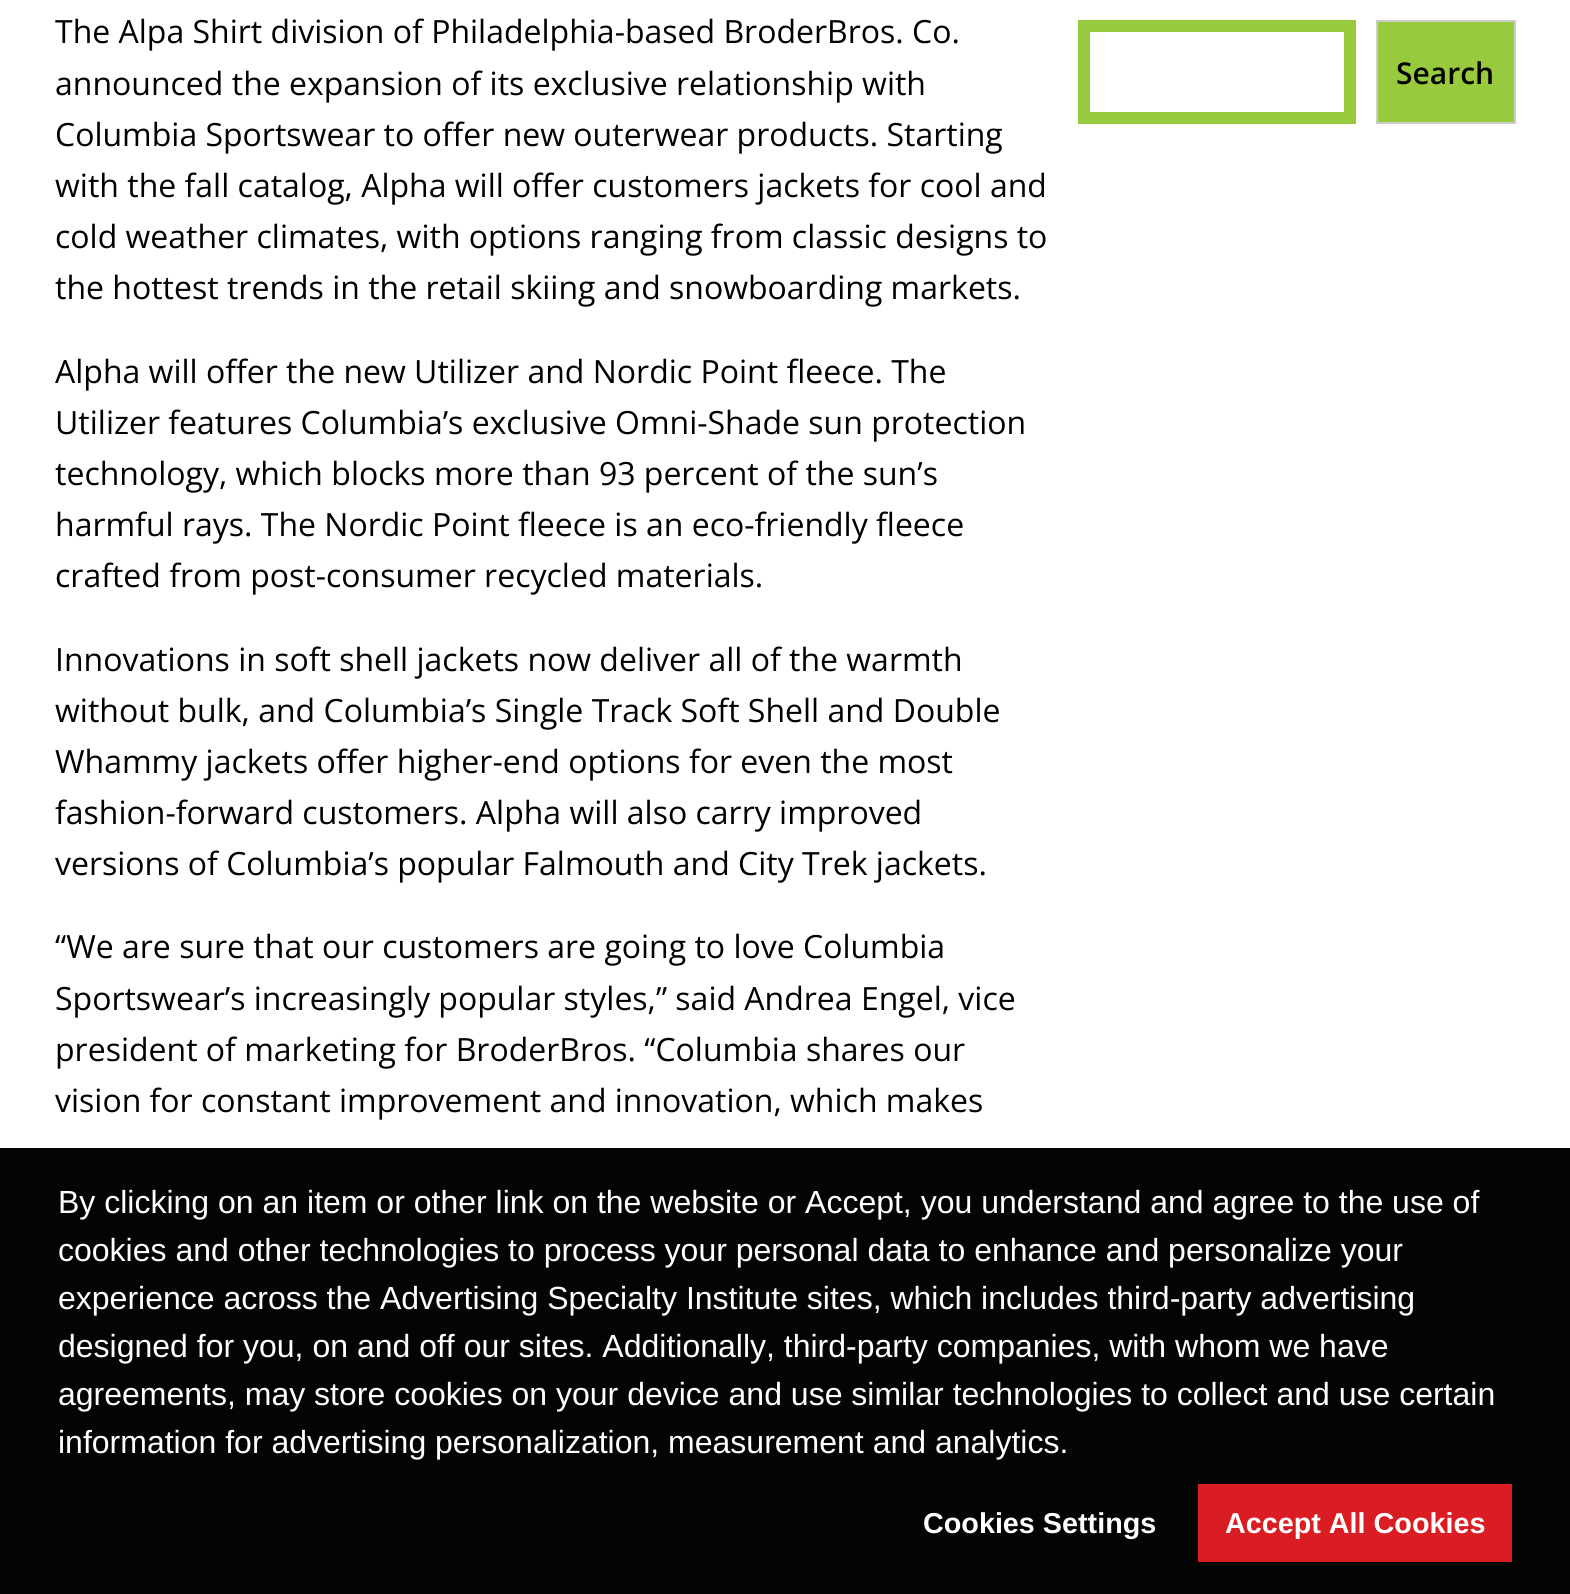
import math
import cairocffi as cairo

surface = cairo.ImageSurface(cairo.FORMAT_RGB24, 1570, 1594)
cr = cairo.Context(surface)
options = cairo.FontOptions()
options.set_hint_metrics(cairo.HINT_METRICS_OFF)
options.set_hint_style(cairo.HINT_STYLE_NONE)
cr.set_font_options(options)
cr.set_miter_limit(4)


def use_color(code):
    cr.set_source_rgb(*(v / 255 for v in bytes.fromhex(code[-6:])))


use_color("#ffffff")
cr.paint()
cr.select_font_face("Open Sans")
cr.set_font_size(32)
use_color("#000000")
cr.move_to(55, 43)
cr.show_text("The Alpa Shirt division of Philadelphia-based BroderBros. Co.")
cr.move_to(55, 95)
cr.show_text("announced the expansion of its exclusive relationship with")
cr.move_to(55, 146)
cr.show_text("Columbia Sportswear to offer new outerwear products. Starting")
cr.move_to(55, 197)
cr.show_text("with the fall catalog, Alpha will offer customers jackets for cool and")
cr.move_to(55, 248)
cr.show_text("cold weather climates, with options ranging from classic designs to")
cr.move_to(55, 299)
cr.show_text("the hottest trends in the retail skiing and snowboarding markets.")
cr.move_to(55, 383)
cr.show_text("Alpha will offer the new Utilizer and Nordic Point fleece. The")
cr.move_to(55, 434)
cr.show_text("Utilizer features Columbia’s exclusive Omni-Shade sun protection")
cr.move_to(55, 485)
cr.show_text("technology, which blocks more than 93 percent of the sun’s")
cr.move_to(55, 536)
cr.show_text("harmful rays. The Nordic Point fleece is an eco-friendly fleece")
cr.move_to(55, 587)
cr.show_text("crafted from post-consumer recycled materials.")
cr.move_to(55, 671)
cr.show_text("Innovations in soft shell jackets now deliver all of the warmth")
cr.move_to(55, 722)
cr.show_text("without bulk, and Columbia’s Single Track Soft Shell and Double")
cr.move_to(55, 773)
cr.show_text("Whammy jackets offer higher-end options for even the most")
cr.move_to(55, 824)
cr.show_text("fashion-forward customers. Alpha will also carry improved")
cr.move_to(55, 875)
cr.show_text("versions of Columbia’s popular Falmouth and City Trek jackets.")
cr.move_to(55, 958)
cr.show_text("“We are sure that our customers are going to love Columbia")
cr.move_to(55, 1010)
cr.show_text("Sportswear’s increasingly popular styles,” said Andrea Engel, vice")
cr.move_to(55, 1061)
cr.show_text("president of marketing for BroderBros. “Columbia shares our")
cr.move_to(55, 1112)
cr.show_text("vision for constant improvement and innovation, which makes")
cr.rectangle(1084, 26, 266, 92)
use_color("#97ca3d")
cr.set_line_width(12)
cr.stroke()
cr.rectangle(1377, 21, 138, 102)
cr.fill_preserve()
use_color("#cccccc")
cr.set_line_width(2)
cr.stroke()
cr.select_font_face("Open Sans SemiBold")
cr.set_font_size(30)
use_color("#000000")
cr.move_to(1396, 84)
cr.show_text("Search")
use_color("#040404")
cr.rectangle(0, 1148, 1570, 446)
cr.fill()
cr.select_font_face("Liberation Sans")
cr.set_font_size(32)
use_color("#ffffff")
cr.move_to(58, 1213)
cr.show_text("By clicking on an item or other link on the website or Accept, you understand and agree to the use of")
cr.move_to(58, 1261)
cr.show_text("cookies and other technologies to process your personal data to enhance and personalize your")
cr.move_to(58, 1309)
cr.show_text("experience across the Advertising Specialty Institute sites, which includes third-party advertising")
cr.move_to(58, 1357)
cr.show_text("designed for you, on and off our sites. Additionally, third-party companies, with whom we have")
cr.move_to(58, 1405)
cr.show_text("agreements, may store cookies on your device and use similar technologies to collect and use certain")
cr.move_to(58, 1453)
cr.show_text("information for advertising personalization, measurement and analytics.")
cr.select_font_face("Liberation Sans", cairo.FONT_SLANT_NORMAL, cairo.FONT_WEIGHT_BOLD)
cr.set_font_size(28.75)
cr.move_to(923, 1533)
cr.show_text("Cookies Settings")
use_color("#da1c23")
cr.rectangle(1198, 1484, 314, 78)
cr.fill()
use_color("#ffffff")
cr.move_to(1225, 1533)
cr.show_text("Accept All Cookies")
surface.write_to_png("result.png")
